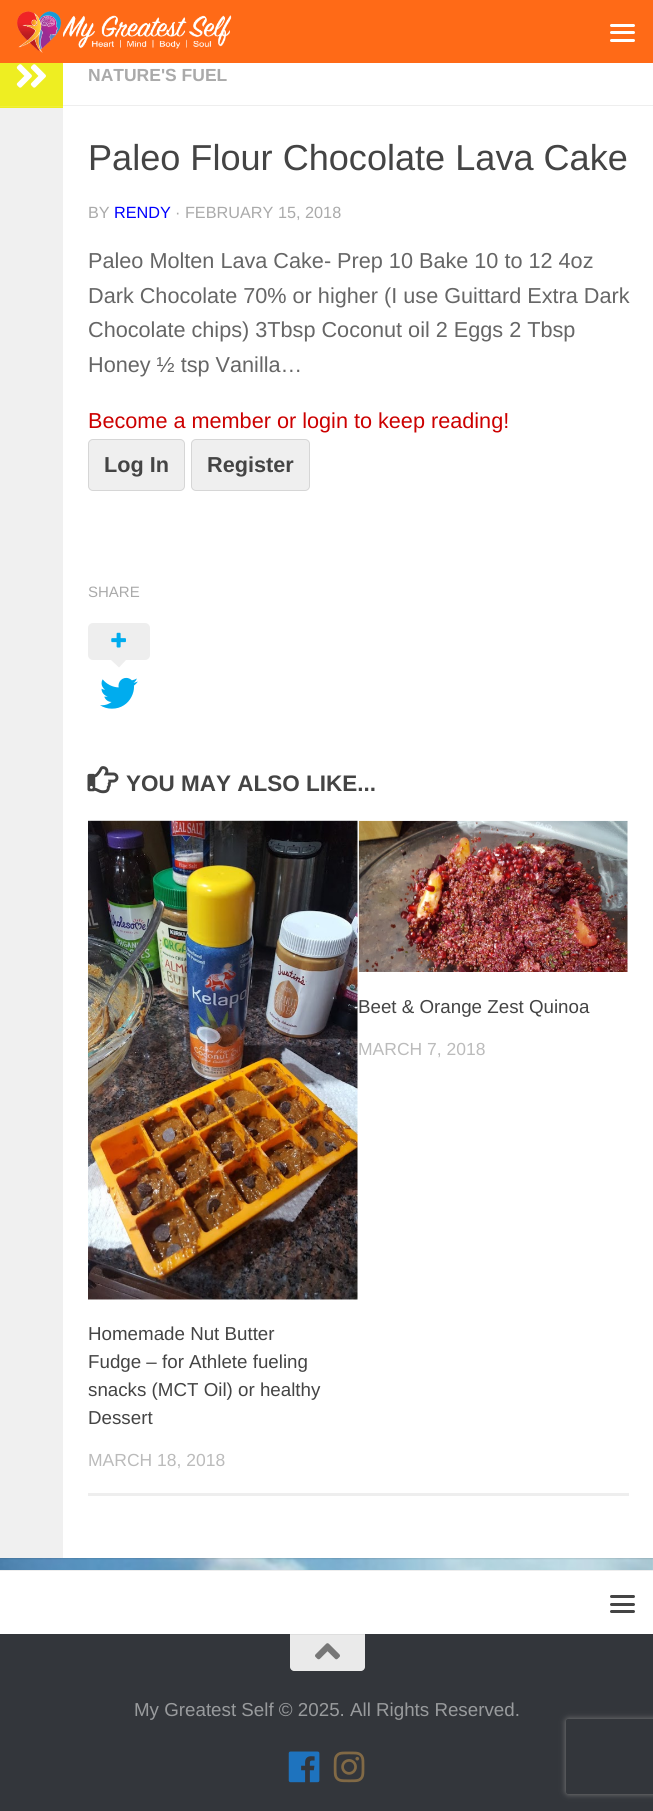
import math
import cairocffi as cairo

surface = cairo.ImageSurface(cairo.FORMAT_RGB24, 653, 1811)
cr = cairo.Context(surface)
options = cairo.FontOptions()
options.set_hint_metrics(cairo.HINT_METRICS_OFF)
options.set_hint_style(cairo.HINT_STYLE_NONE)
cr.set_font_options(options)
cr.set_miter_limit(4)


def use_color(code):
    cr.set_source_rgb(*(v / 255 for v in bytes.fromhex(code[-6:])))


def round_rect(x, y, w, h, r):
    cr.new_sub_path()
    for i, (u, v) in enumerate([(x + w - r, y + h - r), (x + r, y + h - r), (x + r, y + r), (x + w - r, y + r)]):
        cr.arc(u, v, r, i * math.pi / 2, (i + 1) * math.pi / 2)
    cr.close_path()


def shadow(x, y, w, h, r, blur, alpha):
    cr.push_group_with_content(cairo.CONTENT_ALPHA)
    cr.set_operator(cairo.OPERATOR_SOURCE)
    for i in range(15, -16, -2):
        e = blur * i / 6
        if min(w, h) + 2 * e > 0:
            cr.set_source_rgba(0, 0, 0, alpha * math.erfc((i - 1) / 8.5) / 2)
            round_rect(x - e, y - e, w + 2 * e, h + 2 * e, max(0, min(r + e + blur * .6, min(w, h) / 2 + e)))
            cr.fill()
    cr.mask(cr.pop_group())


def picture(path, x, y, w, h):
    cr.save()
    cr.set_source_surface(cairo.ImageSurface.create_from_png(path), x, y)
    cr.rectangle(x, y, w, h)
    cr.fill()
    cr.restore()


use_color("#ffffff")
cr.paint()
picture("img1.png", 0, 1558, 653, 12)
use_color("#000000")
shadow(0, 46, 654, 1513, 0, 0.5, 0.1)
use_color("#ff6a17")
cr.rectangle(0, 0, 653, 63)
cr.fill()
picture("img2.png", 17, 11, 215, 42)
use_color("#ffffff")
round_rect(610, 24, 25, 3, 1.5)
cr.fill()
round_rect(610, 31, 25, 3, 1.5)
cr.fill()
round_rect(610, 39, 25, 3, 1.5)
cr.fill()
cr.rectangle(63, 63, 590, 1495)
cr.fill()
use_color("#f0f0f0")
cr.rectangle(0, 108, 63, 1450)
cr.fill()
use_color("#eeee22")
cr.rectangle(0, 63, 63, 45)
cr.fill()
use_color("#f0f038")
cr.rectangle(0, 106, 63, 1)
cr.fill()
picture("img3.png", 16, 64, 30, 24)
use_color("#eeeeee")
cr.rectangle(63, 105, 590, 1)
cr.fill()
cr.select_font_face("Liberation Sans", cairo.FONT_SLANT_NORMAL, cairo.FONT_WEIGHT_BOLD)
cr.set_font_size(17.5)
use_color("#aaaaaa")
cr.move_to(88, 81)
cr.show_text("NATURE'S FUEL")
cr.select_font_face("Liberation Sans")
cr.set_font_size(36.1)
use_color("#444444")
cr.move_to(88, 170)
cr.show_text("Paleo Flour Chocolate Lava Cake")
cr.set_font_size(16.25)
use_color("#aaaaaa")
cr.move_to(88, 218)
cr.show_text("BY")
use_color("#0000ff")
cr.move_to(114, 218)
cr.show_text("RENDY")
use_color("#aaaaaa")
cr.move_to(175, 218)
cr.show_text("· FEBRUARY 15, 2018")
cr.set_font_size(21.65)
use_color("#666666")
cr.move_to(88, 268)
cr.show_text("Paleo Molten Lava Cake- Prep 10 Bake 10 to 12 4oz")
cr.move_to(88, 303)
cr.show_text("Dark Chocolate 70% or higher (I use Guittard Extra Dark")
cr.move_to(88, 337)
cr.show_text("Chocolate chips) 3Tbsp Coconut oil 2 Eggs 2 Tbsp")
cr.move_to(88, 372)
cr.show_text("Honey ½ tsp Vanilla…")
use_color("#cc0000")
cr.move_to(88, 428)
cr.show_text("Become a member or login to keep reading!")
use_color("#efefef")
round_rect(88.5, 439.5, 96, 51, 4.5)
cr.fill_preserve()
use_color("#d6d6d6")
cr.set_line_width(1)
cr.stroke()
cr.select_font_face("Liberation Sans", cairo.FONT_SLANT_NORMAL, cairo.FONT_WEIGHT_BOLD)
use_color("#444444")
cr.move_to(104, 472)
cr.show_text("Log In")
use_color("#efefef")
round_rect(191.5, 439.5, 118, 51, 4.5)
cr.fill_preserve()
use_color("#d6d6d6")
cr.stroke()
use_color("#444444")
cr.move_to(207, 472)
cr.show_text("Register")
cr.select_font_face("Liberation Sans")
cr.set_font_size(15)
use_color("#aaaaaa")
cr.move_to(88, 597)
cr.show_text("SHARE")
use_color("#eeeeee")
round_rect(88, 623, 62, 37, 5)
cr.fill()
picture("img4.png", 111, 632, 15, 16)
cr.new_path()
cr.move_to(111, 660)
cr.line_to(126, 660)
cr.line_to(119, 667.5)
cr.close_path()
cr.fill()
picture("img5.png", 100, 677, 38, 32)
picture("img6.png", 87, 766, 32, 28)
cr.select_font_face("Liberation Sans", cairo.FONT_SLANT_NORMAL, cairo.FONT_WEIGHT_BOLD)
cr.set_font_size(22.5)
use_color("#444444")
cr.move_to(126, 791)
cr.show_text("YOU MAY ALSO LIKE...")
use_color("#eeeeee")
cr.rectangle(88, 1493, 541, 3)
cr.fill()
picture("img7.png", 358, 820, 270, 152)
cr.select_font_face("Liberation Sans")
cr.set_font_size(18.75)
use_color("#444444")
cr.move_to(358, 1013)
cr.show_text("Beet & Orange Zest Quinoa")
cr.set_font_size(17.5)
use_color("#bbbbbb")
cr.move_to(358, 1055)
cr.show_text("MARCH 7, 2018")
picture("img8.png", 88, 820, 270, 480)
cr.set_font_size(18.75)
use_color("#444444")
cr.move_to(88, 1340)
cr.show_text("Homemade Nut Butter")
cr.move_to(88, 1368)
cr.show_text("Fudge – for Athlete fueling")
cr.move_to(88, 1396)
cr.show_text("snacks (MCT Oil) or healthy")
cr.move_to(88, 1424)
cr.show_text("Dessert")
cr.set_font_size(17.5)
use_color("#bbbbbb")
cr.move_to(88, 1466)
cr.show_text("MARCH 18, 2018")
use_color("#eeeeee")
cr.rectangle(0, 1570, 653, 1)
cr.fill()
use_color("#444444")
round_rect(610, 1595, 25, 3, 1.5)
cr.fill()
round_rect(610, 1603, 25, 3, 1.5)
cr.fill()
round_rect(610, 1610, 25, 3, 1.5)
cr.fill()
use_color("#33363b")
cr.rectangle(0, 1634, 653, 177)
cr.fill()
use_color("#eaeaea")
cr.new_path()
cr.move_to(290, 1634)
cr.line_to(365, 1634)
cr.line_to(365, 1667)
cr.curve_to(365, 1669, 363, 1671, 361, 1671)
cr.line_to(294, 1671)
cr.curve_to(292, 1671, 290, 1669, 290, 1667)
cr.close_path()
cr.fill()
use_color("#dedede")
cr.rectangle(290, 1634, 75, 1)
cr.fill()
picture("img9.png", 315, 1643, 25, 17)
cr.set_font_size(18.75)
use_color("#999b9d")
cr.move_to(134, 1716)
cr.show_text("My Greatest Self © 2025. All Rights Reserved.")
picture("img10.png", 288, 1751, 32, 32)
picture("img11.png", 333, 1751, 32, 32)
cr.save()
cr.set_fill_rule(cairo.FILL_RULE_EVEN_ODD)
cr.new_path()
cr.move_to(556, 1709)
cr.line_to(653, 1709)
cr.line_to(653, 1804)
cr.line_to(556, 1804)
cr.close_path()
cr.move_to(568.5, 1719)
cr.line_to(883.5, 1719)
cr.curve_to(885, 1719, 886, 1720, 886, 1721.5)
cr.line_to(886, 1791.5)
cr.curve_to(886, 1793, 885, 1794, 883.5, 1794)
cr.line_to(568.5, 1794)
cr.curve_to(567, 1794, 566, 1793, 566, 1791.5)
cr.line_to(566, 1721.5)
cr.curve_to(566, 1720, 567, 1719, 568.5, 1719)
cr.close_path()
cr.clip()
use_color("#808080")
shadow(566, 1719, 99, 75, 2.5, 3, 1)
cr.restore()
surface.write_to_png("result.png")
